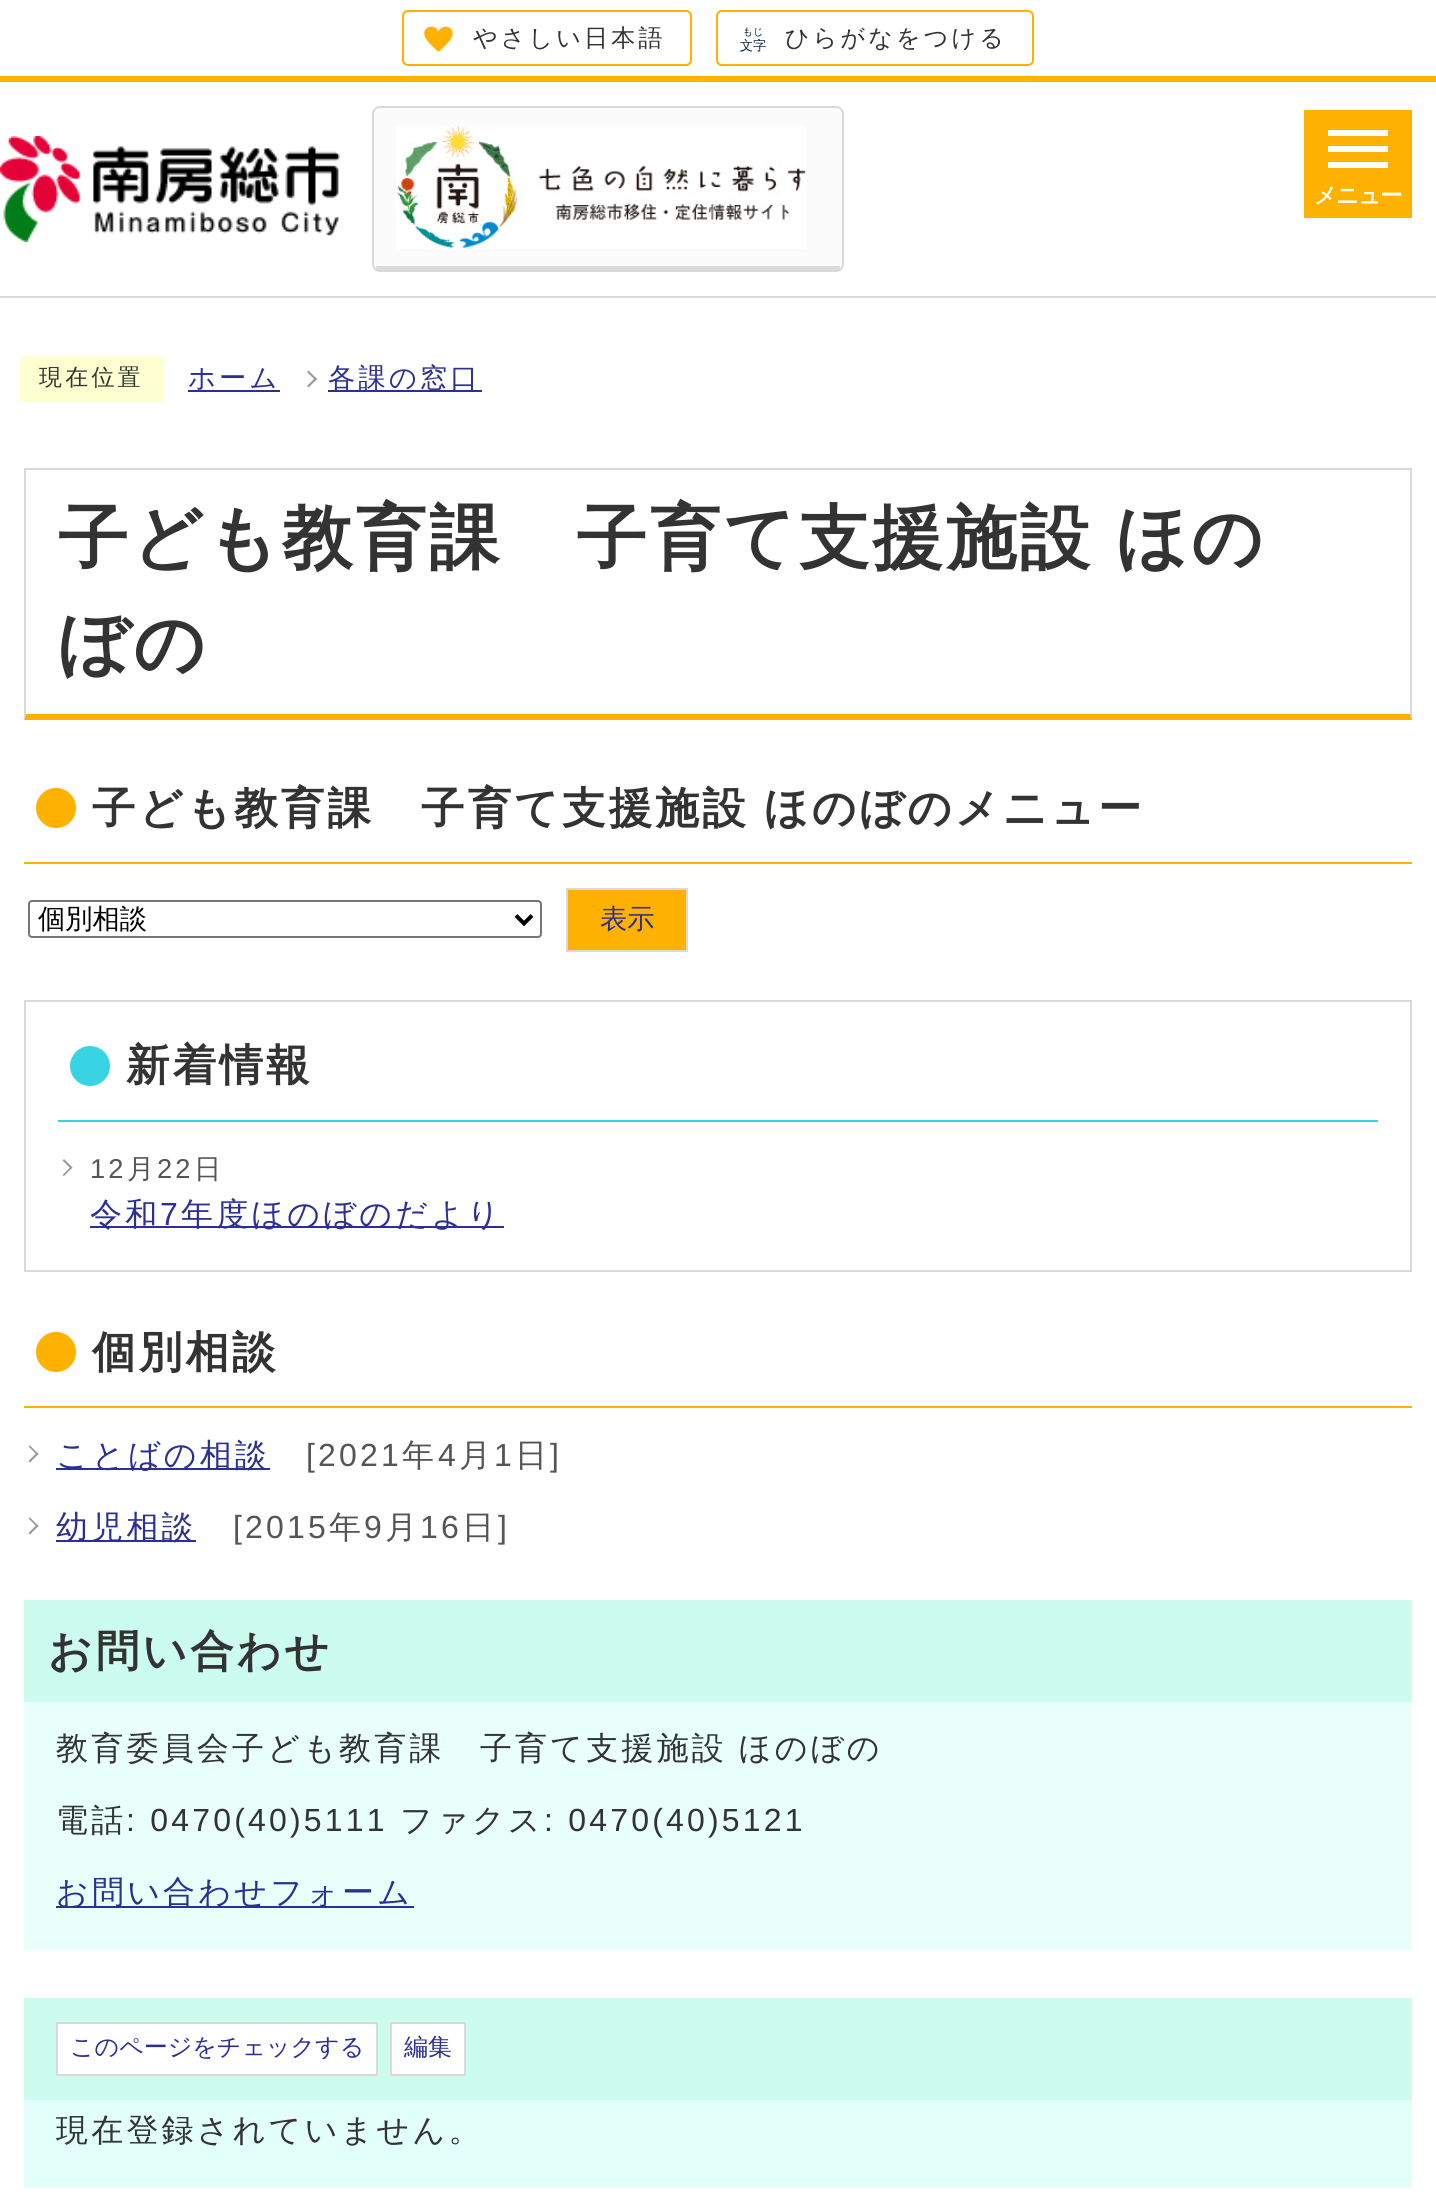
import math
import cairocffi as cairo

surface = cairo.ImageSurface(cairo.FORMAT_RGB24, 1436, 2196)
cr = cairo.Context(surface)
options = cairo.FontOptions()
options.set_hint_metrics(cairo.HINT_METRICS_OFF)
options.set_hint_style(cairo.HINT_STYLE_NONE)
cr.set_font_options(options)
cr.set_miter_limit(4)


def use_color(code):
    cr.set_source_rgb(*(v / 255 for v in bytes.fromhex(code[-6:])))


def spaced_text(x, y, s, letter, word):
    cr.move_to(x, y)
    for ch in s:
        cr.show_text(ch)
        cr.rel_move_to(letter + word * (ch == ' '), 0)


def round_rect(x, y, w, h, r):
    cr.new_sub_path()
    for i, (u, v) in enumerate([(x + w - r, y + h - r), (x + r, y + h - r), (x + r, y + r), (x + w - r, y + r)]):
        cr.arc(u, v, r, i * math.pi / 2, (i + 1) * math.pi / 2)
    cr.close_path()


def picture(path, x, y, w, h):
    cr.save()
    cr.set_source_surface(cairo.ImageSurface.create_from_png(path), x, y)
    cr.rectangle(x, y, w, h)
    cr.fill()
    cr.restore()


use_color("#ffffff")
cr.paint()
picture("img1.png", 424, 26, 30, 26)
round_rect(403, 11, 288, 54, 5)
use_color("#ffb100")
cr.stroke()
cr.select_font_face("WenQuanYi Zen Hei Medium")
cr.set_font_size(24)
use_color("#333333")
spaced_text(473, 46, "やさしい日本語", 3.2, 0)
picture("img2.png", 740, 27, 26, 25)
round_rect(717, 11, 316, 54, 5)
use_color("#ffb100")
cr.stroke()
use_color("#333333")
spaced_text(785, 46, "ひらがなをつける", 3.2, 0)
use_color("#ffb100")
cr.rectangle(0, 76, 1436, 6)
cr.fill()
use_color("#d9d9d9")
cr.rectangle(0, 296, 1436, 2)
cr.fill()
picture("img3.png", 0, 136, 340, 106)
use_color("#fbfbfb")
cr.new_path()
cr.move_to(380, 108)
cr.line_to(836, 108)
cr.curve_to(839, 108, 842, 111, 842, 114)
cr.line_to(842, 264)
cr.curve_to(842, 265, 839, 266, 836, 266)
cr.line_to(380, 266)
cr.curve_to(377, 266, 374, 265, 374, 264)
cr.line_to(374, 114)
cr.curve_to(374, 111, 377, 108, 380, 108)
cr.close_path()
cr.fill()
round_rect(373, 107, 470, 164, 7)
use_color("#d9d9d9")
cr.stroke()
cr.rectangle(376, 266, 464, 4)
cr.fill()
picture("img4.png", 396, 126, 410, 123)
use_color("#ffb100")
cr.rectangle(1304, 110, 108, 108)
cr.fill()
use_color("#ffffff")
cr.rectangle(1328, 130, 60, 6)
cr.fill()
cr.rectangle(1328, 146, 60, 6)
cr.fill()
cr.rectangle(1328, 162, 60, 6)
cr.fill()
cr.select_font_face("WenQuanYi Zen Hei", cairo.FONT_SLANT_NORMAL, cairo.FONT_WEIGHT_BOLD)
cr.set_font_size(22.5)
spaced_text(1314, 203, "メニュー", -1, 0)
use_color("#fdffd1")
round_rect(20, 356, 144, 46, 4)
cr.fill()
cr.select_font_face("WenQuanYi Zen Hei Medium")
cr.set_font_size(23)
use_color("#333333")
spaced_text(39, 385, "現在位置", 3.2, 0)
cr.set_font_size(27.25)
use_color("#2b3095")
spaced_text(188, 387, "ホーム", 3.2, 0)
cr.rectangle(188, 390, 92, 2)
cr.fill()
use_color("#999999")
cr.new_path()
cr.move_to(307, 372)
cr.line_to(308.5, 370.5)
cr.line_to(317, 379)
cr.line_to(315.5, 380.5)
cr.close_path()
cr.fill()
cr.new_path()
cr.move_to(307, 386)
cr.line_to(315.5, 377.5)
cr.line_to(317, 379)
cr.line_to(308.5, 387.5)
cr.close_path()
cr.fill()
use_color("#2b3095")
cr.rectangle(328, 390, 154, 2)
cr.fill()
spaced_text(328, 387, "各課の窓口", 3.2, 0)
use_color("#d9d9d9")
cr.rectangle(24, 468, 1388, 2)
cr.fill()
cr.new_path()
cr.move_to(1412, 468)
cr.line_to(1412, 720)
cr.line_to(1410, 714)
cr.line_to(1410, 470)
cr.close_path()
cr.fill()
use_color("#ffb100")
cr.new_path()
cr.move_to(1412, 720)
cr.line_to(24, 720)
cr.line_to(26, 714)
cr.line_to(1410, 714)
cr.close_path()
cr.fill()
use_color("#d9d9d9")
cr.new_path()
cr.move_to(24, 720)
cr.line_to(24, 468)
cr.line_to(26, 470)
cr.line_to(26, 714)
cr.close_path()
cr.fill()
cr.select_font_face("WenQuanYi Zen Hei", cairo.FONT_SLANT_NORMAL, cairo.FONT_WEIGHT_BOLD)
cr.set_font_size(70.4)
use_color("#333333")
spaced_text(58, 562, "子ども教育課　子育て支援施設 ほの", 3.2, -2)
spaced_text(58, 668, "ぼの", 3.2, 0)
use_color("#ffb100")
cr.rectangle(24, 862, 1388, 2)
cr.fill()
cr.arc(56, 808, 20, 0, 2 * math.pi)
cr.fill()
cr.set_font_size(43.5)
use_color("#333333")
spaced_text(92, 823, "子ども教育課　子育て支援施設 ほのぼのメニュー", 3.2, -1)
round_rect(29, 901, 512, 36, 3)
use_color("#767676")
cr.stroke()
cr.new_path()
cr.move_to(516, 915.5)
cr.line_to(524, 923.5)
cr.line_to(532, 915.5)
use_color("#000000")
cr.set_line_width(4)
cr.stroke()
cr.select_font_face("WenQuanYi Zen Hei Medium")
cr.set_font_size(27.25)
cr.move_to(38, 928)
cr.show_text("個別相談")
use_color("#ffb100")
cr.rectangle(567, 889, 120, 62)
cr.fill_preserve()
use_color("#d9d9d9")
cr.set_line_width(2)
cr.stroke()
use_color("#2b3095")
cr.move_to(600, 928)
cr.show_text("表示")
cr.rectangle(25, 1001, 1386, 270)
use_color("#d9d9d9")
cr.stroke()
use_color("#39d4e3")
cr.rectangle(58, 1120, 1320, 2)
cr.fill()
cr.arc(90, 1066, 20, 0, 2 * math.pi)
cr.fill()
cr.select_font_face("WenQuanYi Zen Hei", cairo.FONT_SLANT_NORMAL, cairo.FONT_WEIGHT_BOLD)
cr.set_font_size(43.5)
use_color("#333333")
spaced_text(126, 1080, "新着情報", 3.2, 0)
use_color("#999999")
cr.new_path()
cr.move_to(62.5, 1160.5)
cr.line_to(64, 1159)
cr.line_to(72.5, 1167.5)
cr.line_to(71, 1169)
cr.close_path()
cr.fill()
cr.new_path()
cr.move_to(62.5, 1175)
cr.line_to(71, 1166.5)
cr.line_to(72.5, 1167.5)
cr.line_to(64, 1176)
cr.close_path()
cr.fill()
cr.select_font_face("Liberation Sans")
cr.set_font_size(27.25)
use_color("#555555")
spaced_text(90, 1178, "12", 3.2, 0)
cr.select_font_face("WenQuanYi Zen Hei Medium")
spaced_text(127, 1178, "月", 3.2, 0)
cr.select_font_face("Liberation Sans")
spaced_text(157, 1178, "22", 3.2, 0)
cr.select_font_face("WenQuanYi Zen Hei Medium")
spaced_text(194, 1178, "日", 3.2, 0)
use_color("#2b3095")
cr.rectangle(90, 1226, 414, 2)
cr.fill()
cr.set_font_size(32)
spaced_text(90, 1225, "令和", 3.2, 0)
cr.select_font_face("Liberation Sans")
spaced_text(160, 1225, "7", 3.2, 0)
cr.select_font_face("WenQuanYi Zen Hei Medium")
spaced_text(181, 1225, "年度ほのぼのだより", 3.2, 0)
use_color("#ffb100")
cr.rectangle(24, 1406, 1388, 2)
cr.fill()
cr.arc(56, 1352, 20, 0, 2 * math.pi)
cr.fill()
cr.select_font_face("WenQuanYi Zen Hei", cairo.FONT_SLANT_NORMAL, cairo.FONT_WEIGHT_BOLD)
cr.set_font_size(43.5)
use_color("#333333")
spaced_text(92, 1367, "個別相談", 3.2, 0)
use_color("#999999")
cr.new_path()
cr.move_to(28.5, 1446.5)
cr.line_to(30, 1445.5)
cr.line_to(38.5, 1454)
cr.line_to(37, 1455)
cr.close_path()
cr.fill()
cr.new_path()
cr.move_to(28.5, 1461)
cr.line_to(37, 1452.5)
cr.line_to(38.5, 1454)
cr.line_to(30, 1462.5)
cr.close_path()
cr.fill()
use_color("#2b3095")
cr.rectangle(56, 1468, 214, 2)
cr.fill()
cr.select_font_face("WenQuanYi Zen Hei Medium")
cr.set_font_size(32)
spaced_text(56, 1466, "ことばの相談", 3.2, 0)
cr.select_font_face("Liberation Sans")
use_color("#555555")
spaced_text(306, 1466, "[2021", 3.2, 0)
cr.select_font_face("WenQuanYi Zen Hei Medium")
spaced_text(402, 1466, "年", 3.2, 0)
cr.select_font_face("Liberation Sans")
spaced_text(438, 1466, "4", 3.2, 0)
cr.select_font_face("WenQuanYi Zen Hei Medium")
spaced_text(459, 1466, "月", 3.2, 0)
cr.select_font_face("Liberation Sans")
spaced_text(494, 1466, "1", 3.2, 0)
cr.select_font_face("WenQuanYi Zen Hei Medium")
spaced_text(515, 1466, "日", 3.2, 0)
cr.select_font_face("Liberation Sans")
spaced_text(550, 1466, "]", 3.2, 0)
use_color("#999999")
cr.new_path()
cr.move_to(28.5, 1518.5)
cr.line_to(30, 1517.5)
cr.line_to(38.5, 1526)
cr.line_to(37, 1527)
cr.close_path()
cr.fill()
cr.new_path()
cr.move_to(28.5, 1533)
cr.line_to(37, 1524.5)
cr.line_to(38.5, 1526)
cr.line_to(30, 1534.5)
cr.close_path()
cr.fill()
use_color("#2b3095")
cr.rectangle(56, 1540, 140, 2)
cr.fill()
cr.select_font_face("WenQuanYi Zen Hei Medium")
spaced_text(56, 1538, "幼児相談", 3.2, 0)
cr.select_font_face("Liberation Sans")
use_color("#555555")
spaced_text(233, 1538, "[2015", 3.2, 0)
cr.select_font_face("WenQuanYi Zen Hei Medium")
spaced_text(329, 1538, "年", 3.2, 0)
cr.select_font_face("Liberation Sans")
spaced_text(364, 1538, "9", 3.2, 0)
cr.select_font_face("WenQuanYi Zen Hei Medium")
spaced_text(385, 1538, "月", 3.2, 0)
cr.select_font_face("Liberation Sans")
spaced_text(420, 1538, "16", 3.2, 0)
cr.select_font_face("WenQuanYi Zen Hei Medium")
spaced_text(462, 1538, "日", 3.2, 0)
cr.select_font_face("Liberation Sans")
spaced_text(498, 1538, "]", 3.2, 0)
use_color("#e8fffa")
cr.rectangle(24, 1702, 1388, 248)
cr.fill()
use_color("#cbfced")
cr.rectangle(24, 1600, 1388, 102)
cr.fill()
cr.select_font_face("WenQuanYi Zen Hei", cairo.FONT_SLANT_NORMAL, cairo.FONT_WEIGHT_BOLD)
cr.set_font_size(43.5)
use_color("#333333")
spaced_text(48, 1666, "お問い合わせ", 3.2, 0)
cr.select_font_face("WenQuanYi Zen Hei Medium")
cr.set_font_size(32)
spaced_text(56, 1759, "教育委員会子ども教育課　子育て支援施設 ほのぼの", 3.2, -1)
spaced_text(56, 1831, "電話", 3.2, 0)
cr.select_font_face("Liberation Sans")
spaced_text(126, 1831, ": 0470(40)5111", 3.2, 0)
cr.select_font_face("WenQuanYi Zen Hei Medium")
spaced_text(400, 1831, "ファクス", 3.2, 0)
cr.select_font_face("Liberation Sans")
spaced_text(544, 1831, ": 0470(40)5121", 3.2, 0)
use_color("#2b3095")
cr.rectangle(56, 1906, 358, 2)
cr.fill()
cr.select_font_face("WenQuanYi Zen Hei Medium")
spaced_text(56, 1903, "お問い合わせフォーム", 3.2, 0)
use_color("#cbfced")
cr.rectangle(24, 1998, 1388, 102)
cr.fill()
use_color("#ffffff")
cr.rectangle(57, 2023, 320, 52)
cr.fill_preserve()
use_color("#d9d9d9")
cr.stroke()
cr.set_font_size(24)
use_color("#2b3095")
cr.move_to(70, 2055)
cr.show_text("このページをチェックする")
use_color("#ffffff")
cr.rectangle(391, 2023, 74, 52)
cr.fill_preserve()
use_color("#d9d9d9")
cr.stroke()
use_color("#2b3095")
cr.move_to(404, 2055)
cr.show_text("編集")
use_color("#e2fff9")
cr.rectangle(24, 2100, 1388, 88)
cr.fill()
cr.set_font_size(32)
use_color("#333333")
spaced_text(56, 2141, "現在登録されていません。", 3.2, 0)
surface.write_to_png("result.png")
